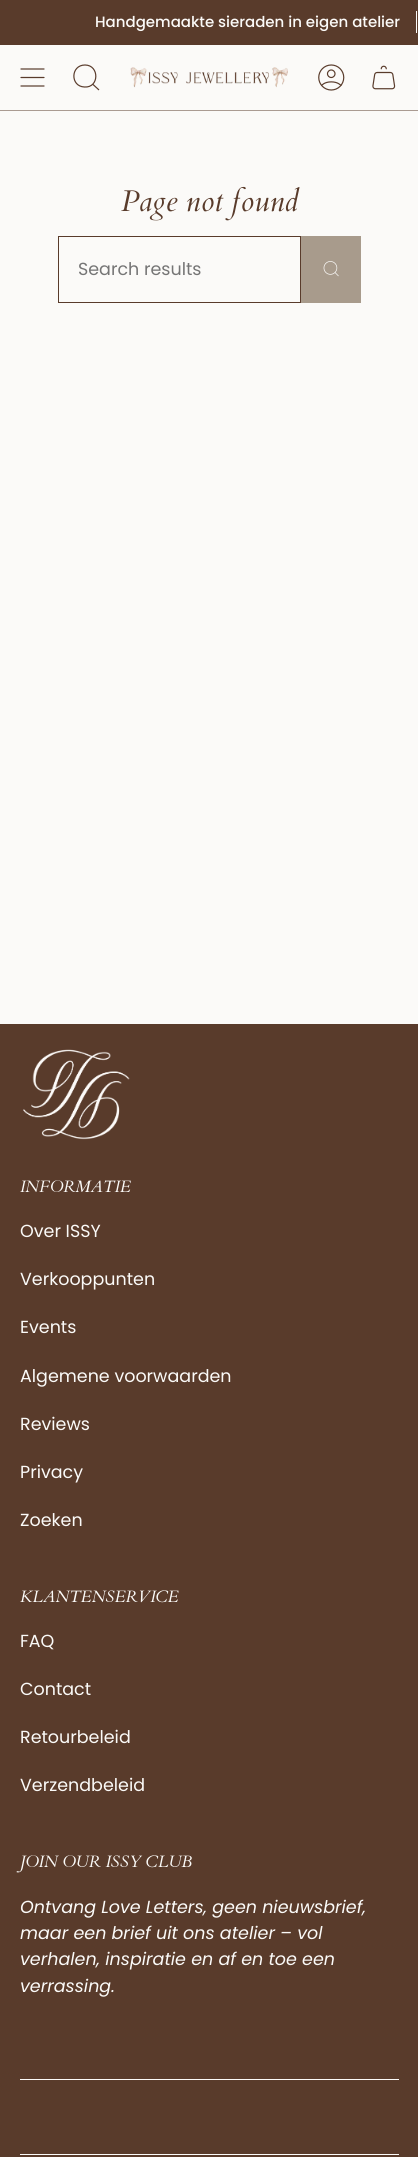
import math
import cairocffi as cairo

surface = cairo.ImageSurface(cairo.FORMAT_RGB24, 418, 2157)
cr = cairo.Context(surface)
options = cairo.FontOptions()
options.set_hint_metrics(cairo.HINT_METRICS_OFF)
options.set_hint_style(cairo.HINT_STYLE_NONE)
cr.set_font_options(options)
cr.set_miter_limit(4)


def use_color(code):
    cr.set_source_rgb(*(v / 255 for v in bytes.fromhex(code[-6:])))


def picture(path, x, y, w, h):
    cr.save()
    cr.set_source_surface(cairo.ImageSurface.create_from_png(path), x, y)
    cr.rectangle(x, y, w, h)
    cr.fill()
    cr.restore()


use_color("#fbfaf8")
cr.paint()
use_color("#593b2b")
cr.rectangle(0, 0, 418, 45)
cr.fill()
cr.select_font_face("Poppins Medium")
cr.set_font_size(15)
use_color("#fbfaf8")
cr.move_to(95, 27)
cr.show_text("Handgemaakte sieraden in eigen atelier")
cr.rectangle(416, 11, 1, 22)
cr.fill()
cr.new_path()
cr.move_to(21, 69)
cr.line_to(44, 69)
cr.move_to(21, 77.5)
cr.line_to(44, 77.5)
cr.move_to(21, 86)
cr.line_to(44, 86)
use_color("#593b2b")
cr.set_line_width(1.2)
cr.set_line_cap(cairo.LINE_CAP_ROUND)
cr.set_line_join(cairo.LINE_JOIN_ROUND)
cr.stroke()
cr.new_path()
cr.move_to(85, 65)
cr.curve_to(99.5, 65, 99.5, 88, 84.5, 87)
cr.curve_to(70, 86.5, 70.5, 65, 85, 65)
cr.close_path()
cr.move_to(92.5, 84)
cr.line_to(99, 90)
cr.set_line_cap(cairo.LINE_CAP_BUTT)
cr.set_line_join(cairo.LINE_JOIN_MITER)
cr.stroke()
picture("img1.png", 130, 67, 158, 21)
picture("img2.png", 318, 64, 27, 27)
picture("img3.png", 372, 65, 24, 25)
use_color("#aa9b92")
cr.rectangle(0, 110, 418, 1)
cr.fill()
cr.select_font_face("Cardo", cairo.FONT_SLANT_ITALIC)
cr.set_font_size(30)
use_color("#593b2b")
cr.move_to(121, 211)
cr.show_text("Page not found")
cr.rectangle(58.5, 236.5, 242, 66)
cr.set_line_width(1)
cr.stroke()
cr.select_font_face("Poppins")
cr.set_font_size(17.5)
use_color("#757575")
cr.move_to(78, 275)
cr.show_text("Search results")
use_color("#a89b8c")
cr.rectangle(301, 236, 60, 67)
cr.fill()
picture("img4.png", 323, 261, 16, 16)
use_color("#593b2b")
cr.rectangle(0, 1024, 418, 1133)
cr.fill()
picture("img5.png", 23, 1049, 107, 91)
cr.select_font_face("Cardo", cairo.FONT_SLANT_ITALIC)
cr.set_font_size(16.5)
use_color("#fbfaf8")
cr.move_to(20, 1192)
cr.show_text("INFORMATIE")
cr.select_font_face("Poppins")
cr.set_font_size(17.5)
cr.move_to(20, 1237)
cr.show_text("Over ISSY")
cr.move_to(20, 1285)
cr.show_text("Verkooppunten")
cr.move_to(20, 1333)
cr.show_text("Events")
cr.move_to(20, 1382)
cr.show_text("Algemene voorwaarden")
cr.move_to(20, 1430)
cr.show_text("Reviews")
cr.move_to(20, 1478)
cr.show_text("Privacy")
cr.move_to(20, 1526)
cr.show_text("Zoeken")
cr.select_font_face("Cardo", cairo.FONT_SLANT_ITALIC)
cr.set_font_size(16.5)
cr.move_to(20, 1602)
cr.show_text("KLANTENSERVICE")
cr.select_font_face("Poppins")
cr.set_font_size(17.5)
cr.move_to(20, 1647)
cr.show_text("FAQ")
cr.move_to(20, 1695)
cr.show_text("Contact")
cr.move_to(20, 1743)
cr.show_text("Retourbeleid")
cr.move_to(20, 1791)
cr.show_text("Verzendbeleid")
cr.select_font_face("Cardo", cairo.FONT_SLANT_ITALIC)
cr.set_font_size(16.5)
cr.move_to(20, 1867)
cr.show_text("JOIN OUR ISSY CLUB")
cr.select_font_face("Poppins", cairo.FONT_SLANT_ITALIC)
cr.set_font_size(17.5)
cr.move_to(20, 1913)
cr.show_text("Ontvang Love Letters, geen nieuwsbrief,")
cr.move_to(20, 1939)
cr.show_text("maar een brief uit ons atelier – vol")
cr.move_to(20, 1965)
cr.show_text("verhalen, inspiratie en af en toe een")
cr.move_to(20, 1992)
cr.show_text("verrassing.")
cr.rectangle(20, 2079, 379, 1)
cr.fill()
cr.rectangle(20, 2154, 379, 1)
cr.fill()
surface.write_to_png("result.png")
